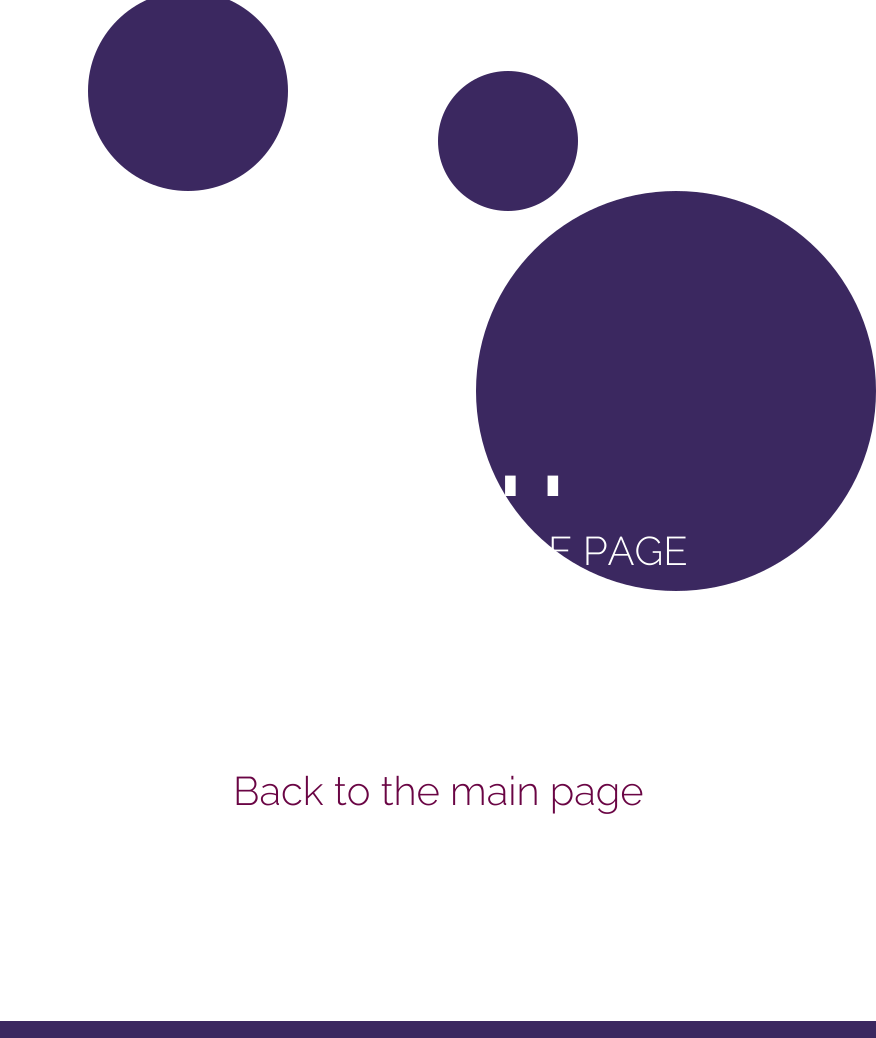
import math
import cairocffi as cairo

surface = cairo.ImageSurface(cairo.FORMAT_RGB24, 876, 1038)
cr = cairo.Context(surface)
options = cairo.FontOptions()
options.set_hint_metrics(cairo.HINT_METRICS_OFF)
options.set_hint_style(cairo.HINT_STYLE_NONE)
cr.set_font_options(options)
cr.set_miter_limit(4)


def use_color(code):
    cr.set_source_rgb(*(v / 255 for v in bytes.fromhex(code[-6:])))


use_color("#3b2860")
cr.paint()
use_color("#ffffff")
cr.rectangle(0, 0, 876, 1021)
cr.fill()
use_color("#3b2860")
cr.arc(188, 91, 100, 0, 2 * math.pi)
cr.fill()
cr.arc(676, 391, 200, 0, 2 * math.pi)
cr.fill()
cr.arc(508, 141, 70, 0, 2 * math.pi)
cr.fill()
cr.select_font_face("Raleway Light")
cr.set_font_size(240)
use_color("#ffffff")
cr.move_to(489, 496)
cr.show_text("..")
cr.set_font_size(40)
cr.move_to(548, 565)
cr.show_text("E PAGE")
use_color("#6a0544")
cr.move_to(233, 805)
cr.show_text("Back to the main page")
surface.write_to_png("result.png")
